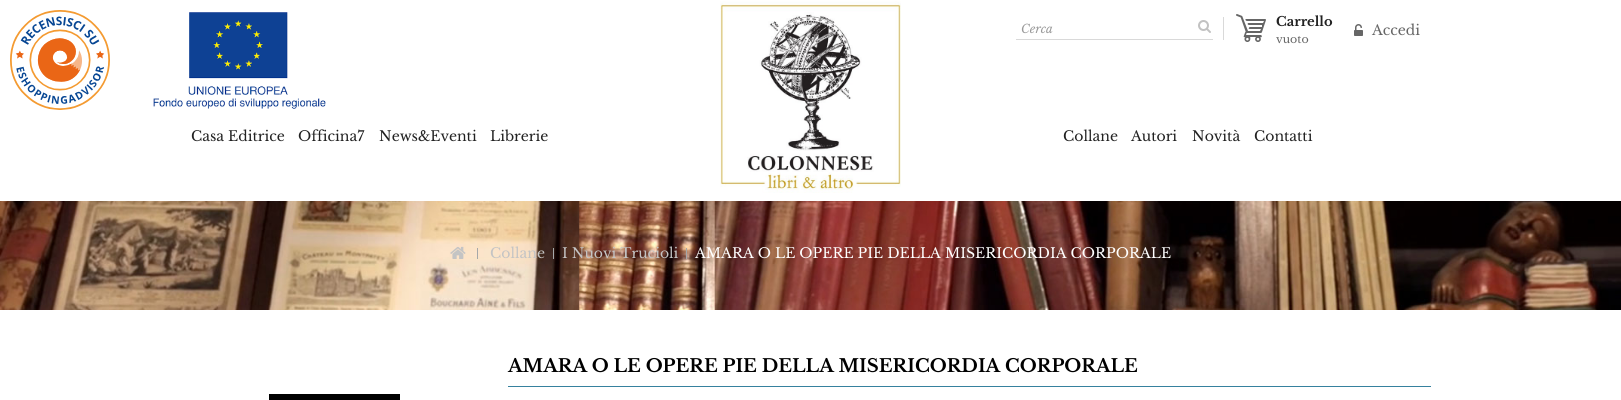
import math
import cairocffi as cairo

surface = cairo.ImageSurface(cairo.FORMAT_RGB24, 1621, 400)
cr = cairo.Context(surface)
options = cairo.FontOptions()
options.set_hint_metrics(cairo.HINT_METRICS_OFF)
options.set_hint_style(cairo.HINT_STYLE_NONE)
cr.set_font_options(options)
cr.set_miter_limit(4)


def use_color(code):
    cr.set_source_rgb(*(v / 255 for v in bytes.fromhex(code[-6:])))


def picture(path, x, y, w, h):
    cr.save()
    cr.set_source_surface(cairo.ImageSurface.create_from_png(path), x, y)
    cr.rectangle(x, y, w, h)
    cr.fill()
    cr.restore()


use_color("#ffffff")
cr.paint()
picture("img1.png", 10, 10, 100, 100)
picture("img2.png", 153, 12, 173, 97)
picture("img3.png", 720, 1, 181, 192)
use_color("#d9d9d9")
cr.rectangle(1223, 17, 1, 23)
cr.fill()
cr.rectangle(1016, 39, 197, 1)
cr.fill()
cr.select_font_face("Libre Baskerville", cairo.FONT_SLANT_ITALIC)
cr.set_font_size(12)
use_color("#999999")
cr.move_to(1021, 33)
cr.show_text("Cerca")
picture("img4.png", 1198, 20, 13, 13)
picture("img5.png", 1236, 14, 30, 28)
cr.select_font_face("Libre Baskerville", cairo.FONT_SLANT_NORMAL, cairo.FONT_WEIGHT_BOLD)
cr.set_font_size(13)
use_color("#222222")
cr.move_to(1276, 26)
cr.show_text("Carrello")
cr.select_font_face("Libre Baskerville")
cr.set_font_size(11)
use_color("#666666")
cr.move_to(1276, 43)
cr.show_text("vuoto")
picture("img6.png", 1354, 24, 9, 12)
cr.set_font_size(14)
cr.move_to(1372, 35)
cr.show_text("Accedi")
use_color("#222222")
cr.move_to(191, 141)
cr.show_text("Casa Editrice")
cr.move_to(298, 141)
cr.show_text("Officina7")
cr.move_to(379, 141)
cr.show_text("News&Eventi")
cr.move_to(490, 141)
cr.show_text("Librerie")
cr.move_to(1063, 141)
cr.show_text("Collane")
cr.move_to(1131, 141)
cr.show_text("Autori")
cr.move_to(1192, 141)
cr.show_text("Novità")
cr.move_to(1254, 141)
cr.show_text("Contatti")
picture("img7.png", 0, 201, 1621, 109)
picture("img8.png", 450, 246, 16, 13)
use_color("#a6a8a9")
cr.rectangle(477, 248, 1, 11)
cr.fill()
use_color("#c4c4c4")
cr.move_to(490, 258)
cr.show_text("Collane")
use_color("#a6a8a9")
cr.rectangle(553, 248, 1, 11)
cr.fill()
use_color("#c4c4c4")
cr.move_to(562, 258)
cr.show_text("I Nuovi Trucioli")
use_color("#a6a8a9")
cr.rectangle(686, 248, 1, 11)
cr.fill()
use_color("#ffffff")
cr.move_to(695, 258)
cr.show_text("AMARA O LE OPERE PIE DELLA MISERICORDIA CORPORALE")
use_color("#36819e")
cr.rectangle(508, 386, 923, 1)
cr.fill()
cr.select_font_face("Libre Baskerville", cairo.FONT_SLANT_NORMAL, cairo.FONT_WEIGHT_BOLD)
cr.set_font_size(18)
use_color("#000000")
cr.move_to(508, 372)
cr.show_text("AMARA O LE OPERE PIE DELLA MISERICORDIA CORPORALE")
cr.rectangle(269, 394, 131, 6)
cr.fill()
surface.write_to_png("result.png")
